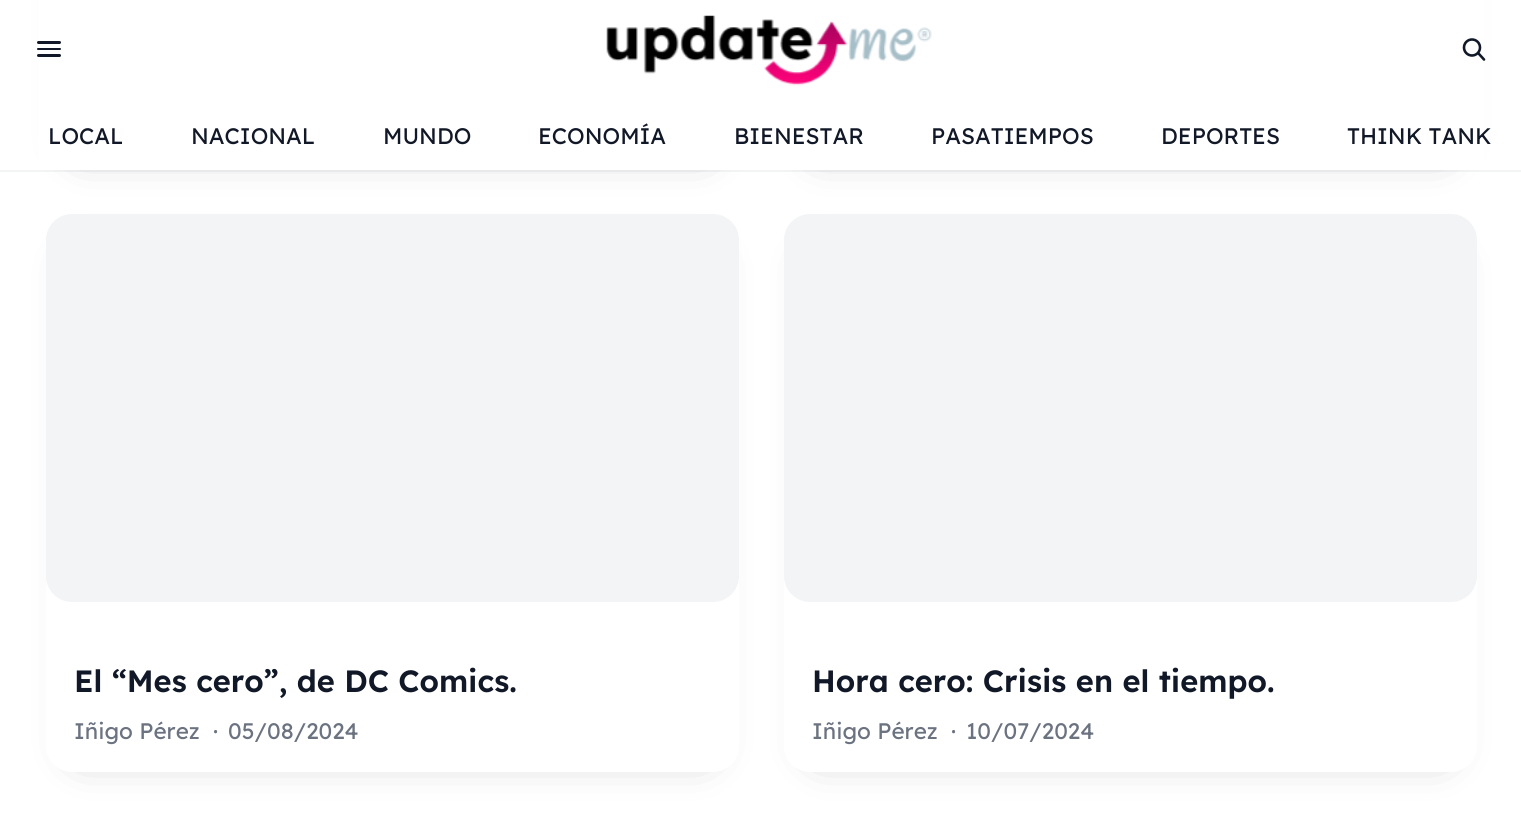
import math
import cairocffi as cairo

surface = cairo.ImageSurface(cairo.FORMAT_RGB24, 1521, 825)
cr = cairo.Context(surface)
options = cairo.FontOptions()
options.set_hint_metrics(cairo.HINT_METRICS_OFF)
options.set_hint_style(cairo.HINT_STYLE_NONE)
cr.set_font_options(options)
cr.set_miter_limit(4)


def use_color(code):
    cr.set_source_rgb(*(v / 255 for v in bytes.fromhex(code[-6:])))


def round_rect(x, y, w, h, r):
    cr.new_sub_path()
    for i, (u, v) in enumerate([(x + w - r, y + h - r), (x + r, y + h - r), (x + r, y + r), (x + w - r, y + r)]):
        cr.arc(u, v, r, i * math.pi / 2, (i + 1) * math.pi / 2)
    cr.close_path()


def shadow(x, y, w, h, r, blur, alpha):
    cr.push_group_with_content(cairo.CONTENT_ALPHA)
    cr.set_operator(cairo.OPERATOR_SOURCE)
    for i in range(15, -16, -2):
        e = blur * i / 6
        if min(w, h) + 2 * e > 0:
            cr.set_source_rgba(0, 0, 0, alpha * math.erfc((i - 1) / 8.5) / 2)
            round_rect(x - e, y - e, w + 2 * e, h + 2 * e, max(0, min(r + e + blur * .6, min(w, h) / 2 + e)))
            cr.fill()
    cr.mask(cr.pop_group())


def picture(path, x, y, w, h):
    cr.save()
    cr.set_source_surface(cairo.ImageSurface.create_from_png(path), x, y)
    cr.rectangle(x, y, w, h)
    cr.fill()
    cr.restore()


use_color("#ffffff")
cr.paint()
use_color("#020617")
shadow(81, -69, 623, 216, 0, 23, 0.3)
shadow(819, -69, 623, 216, 0, 23, 0.3)
cr.set_source_rgba(0.067, 0.094, 0.153, 0.05)
cr.new_path()
cr.move_to(0, 170)
cr.line_to(0, 172)
cr.line_to(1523, 172)
cr.line_to(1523, 2)
cr.line_to(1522, 2)
cr.line_to(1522, 170)
cr.close_path()
cr.fill()
use_color("#ffffff")
cr.rectangle(39, 0, 1445, 170)
cr.fill()
use_color("#111827")
round_rect(37, 41, 24, 3, 1.5)
cr.fill()
round_rect(37, 48, 24, 2, 1)
cr.fill()
round_rect(37, 54, 24, 3, 1.5)
cr.fill()
picture("img1.png", 606, 15, 326, 71)
cr.arc(1472, 47.5, 8, 0, 2 * math.pi)
cr.set_line_width(2.6)
cr.stroke()
cr.new_path()
cr.move_to(1479, 54)
cr.line_to(1484, 59.5)
cr.set_line_cap(cairo.LINE_CAP_ROUND)
cr.stroke()
cr.select_font_face("Lexend")
cr.set_font_size(22.5)
cr.move_to(48, 144)
cr.show_text("LOCAL")
cr.move_to(191, 144)
cr.show_text("NACIONAL")
cr.move_to(383, 144)
cr.show_text("MUNDO")
cr.move_to(538, 144)
cr.show_text("ECONOMÍA")
cr.move_to(734, 144)
cr.show_text("BIENESTAR")
cr.move_to(931, 144)
cr.show_text("PASATIEMPOS")
cr.move_to(1161, 144)
cr.show_text("DEPORTES")
cr.move_to(1347, 144)
cr.show_text("THINK TANK")
use_color("#020617")
shadow(81, 263, 623, 488, 0, 23, 0.3)
use_color("#ffffff")
round_rect(46, 214, 693, 558, 26)
cr.fill()
use_color("#f3f4f6")
round_rect(46, 214, 693, 388, 26)
cr.fill()
cr.select_font_face("Lexend SemiBold")
cr.set_font_size(30.75)
use_color("#111827")
cr.move_to(74, 692)
cr.show_text("El “Mes cero”, de DC Comics.")
cr.select_font_face("Lexend")
cr.set_font_size(22.5)
use_color("#6b7280")
cr.move_to(74, 739)
cr.show_text("Iñigo Pérez")
cr.move_to(213, 739)
cr.show_text("·")
cr.move_to(228, 739)
cr.show_text("05/08/2024")
use_color("#020617")
shadow(819, 263, 623, 488, 0, 23, 0.3)
use_color("#ffffff")
round_rect(784, 214, 693, 558, 26)
cr.fill()
use_color("#f3f4f6")
round_rect(784, 214, 693, 388, 26)
cr.fill()
cr.select_font_face("Lexend SemiBold")
cr.set_font_size(30.75)
use_color("#111827")
cr.move_to(812, 692)
cr.show_text("Hora cero: Crisis en el tiempo.")
cr.select_font_face("Lexend")
cr.set_font_size(22.5)
use_color("#6b7280")
cr.move_to(812, 739)
cr.show_text("Iñigo Pérez")
cr.move_to(951, 739)
cr.show_text("·")
cr.move_to(966, 739)
cr.show_text("10/07/2024")
surface.write_to_png("result.png")
